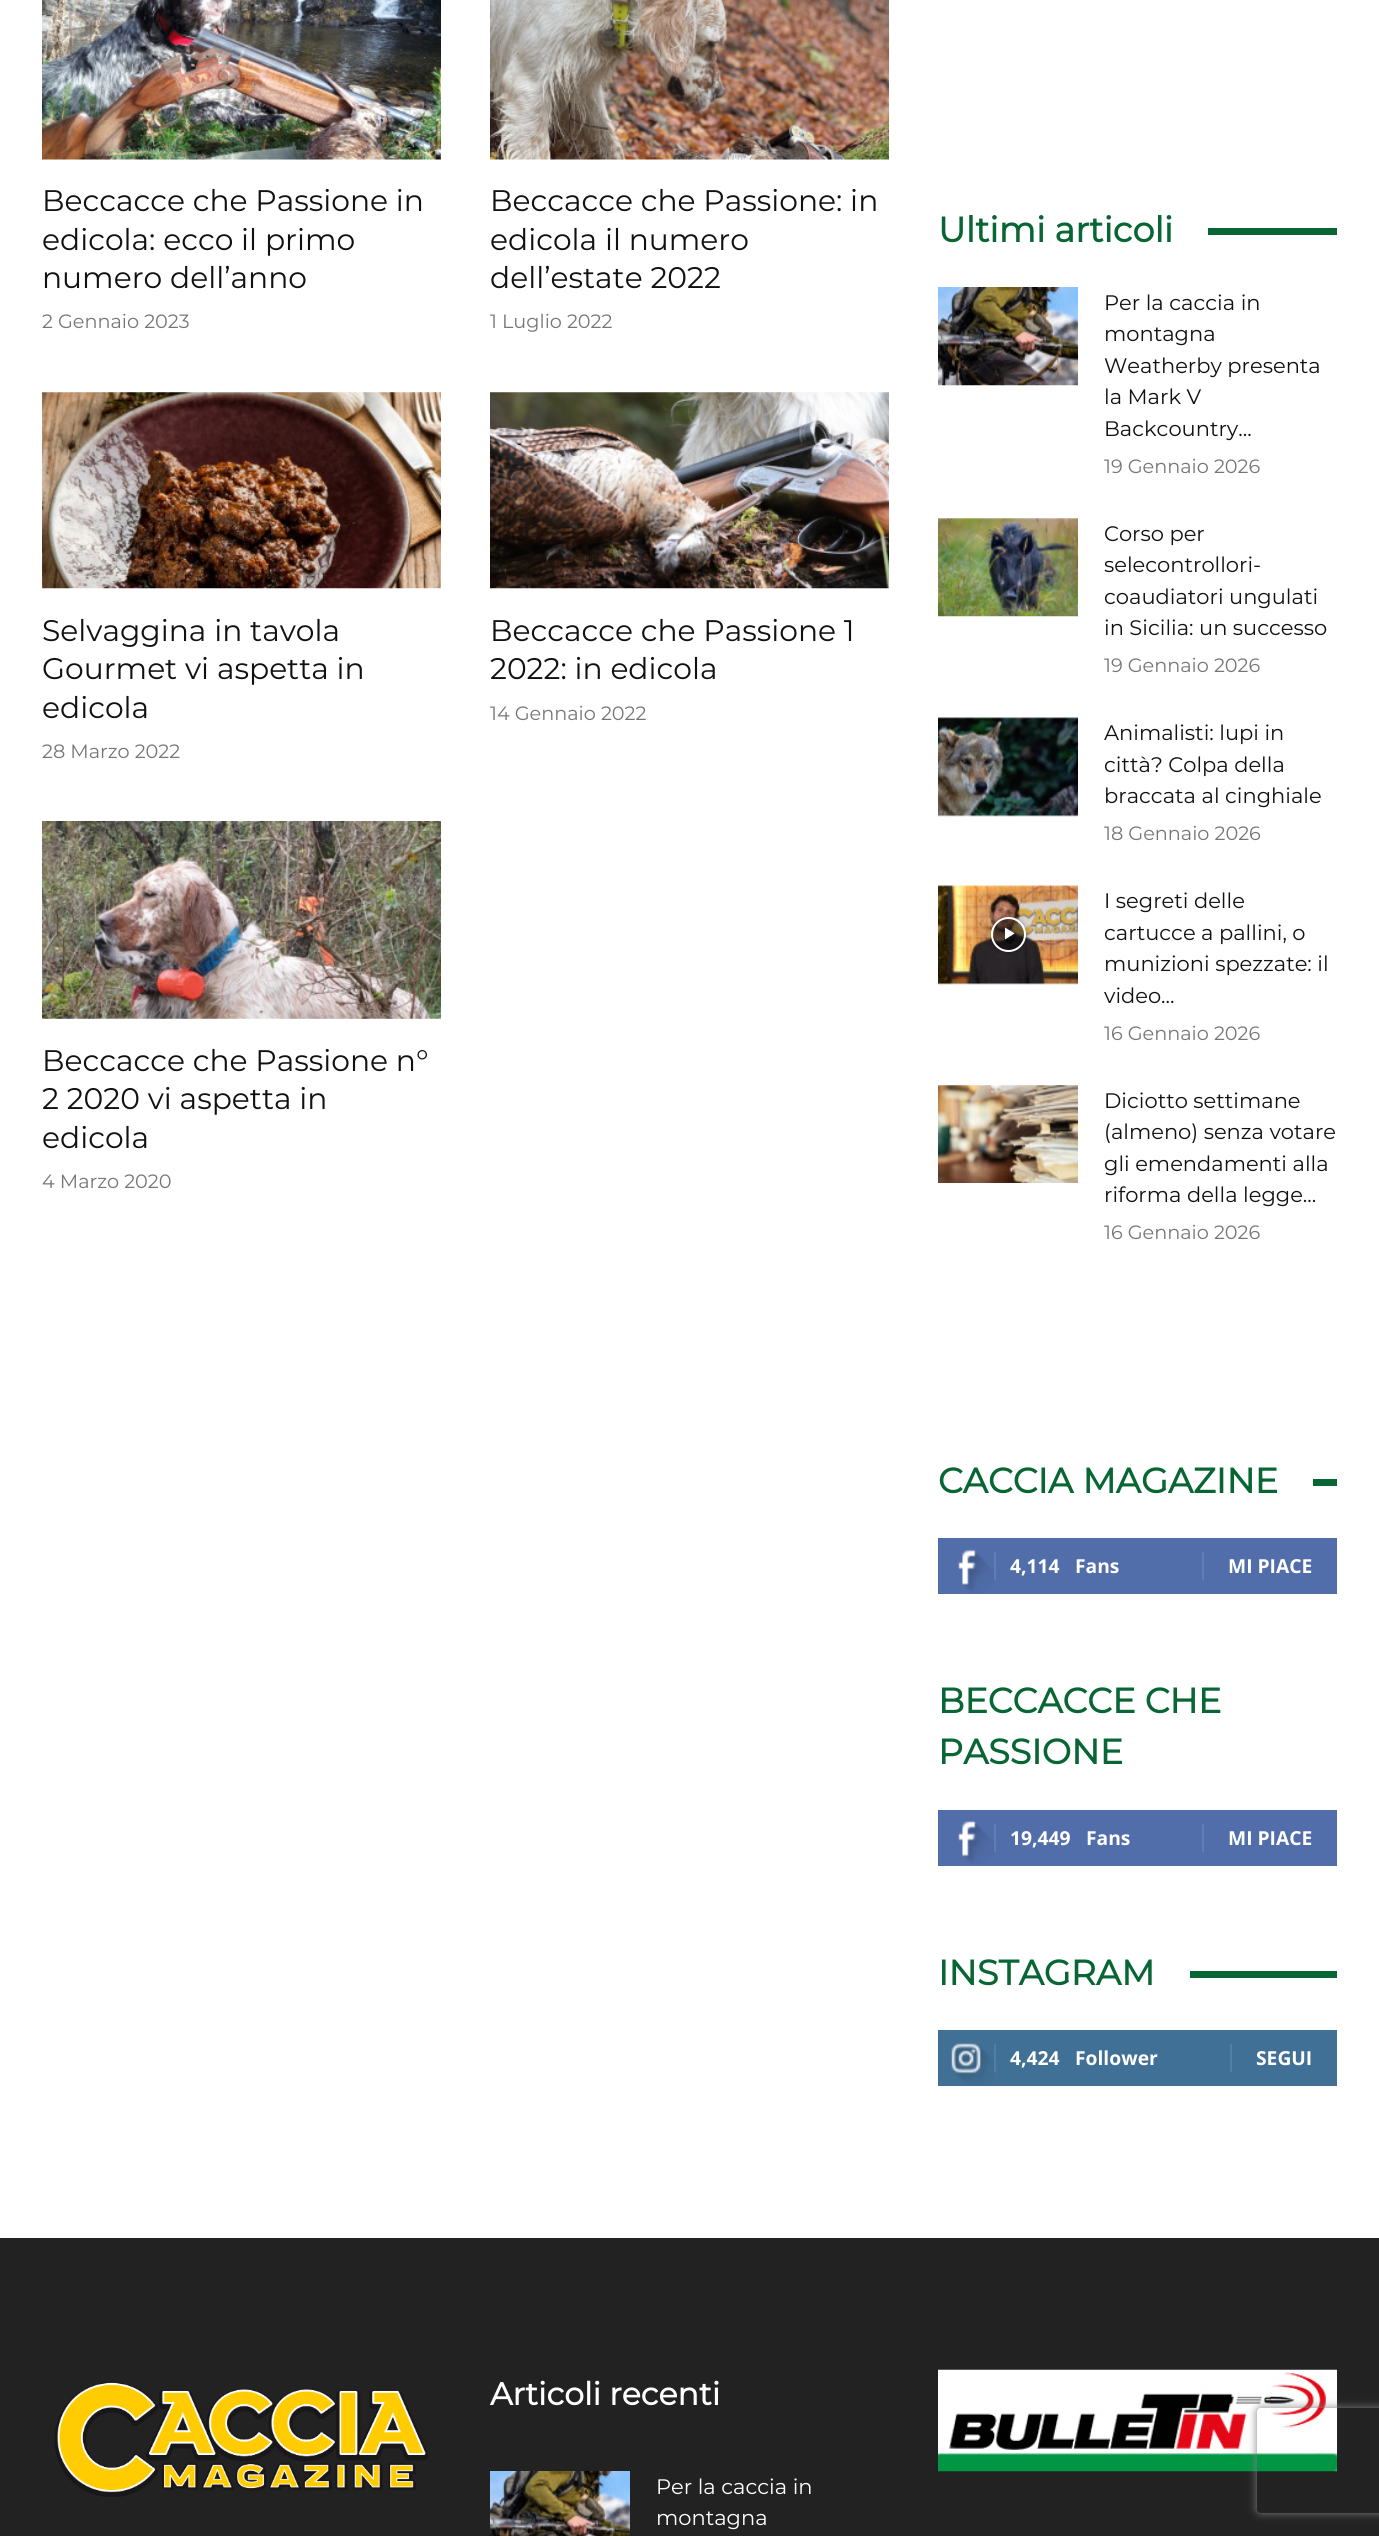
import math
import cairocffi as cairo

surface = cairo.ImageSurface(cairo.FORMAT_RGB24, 1379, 2536)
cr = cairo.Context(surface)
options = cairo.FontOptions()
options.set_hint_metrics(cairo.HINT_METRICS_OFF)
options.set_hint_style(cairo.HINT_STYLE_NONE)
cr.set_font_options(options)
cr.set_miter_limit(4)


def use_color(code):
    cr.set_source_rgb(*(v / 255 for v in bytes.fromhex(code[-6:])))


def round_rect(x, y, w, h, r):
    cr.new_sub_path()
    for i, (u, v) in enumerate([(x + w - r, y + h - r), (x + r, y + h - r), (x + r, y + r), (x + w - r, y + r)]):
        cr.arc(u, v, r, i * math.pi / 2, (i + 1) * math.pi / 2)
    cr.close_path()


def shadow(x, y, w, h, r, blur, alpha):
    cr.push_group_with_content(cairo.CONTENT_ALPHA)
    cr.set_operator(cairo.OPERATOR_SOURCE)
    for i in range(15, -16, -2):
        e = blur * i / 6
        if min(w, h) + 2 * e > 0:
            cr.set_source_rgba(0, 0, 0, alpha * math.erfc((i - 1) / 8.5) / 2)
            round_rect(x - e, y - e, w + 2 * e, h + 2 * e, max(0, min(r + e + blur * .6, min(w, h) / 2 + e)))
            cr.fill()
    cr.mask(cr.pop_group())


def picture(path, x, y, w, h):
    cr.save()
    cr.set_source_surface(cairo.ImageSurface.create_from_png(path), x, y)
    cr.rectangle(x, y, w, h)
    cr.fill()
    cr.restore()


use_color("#ffffff")
cr.paint()
picture("img1.png", 42, 0, 399, 160)
cr.select_font_face("Montserrat Thin")
cr.set_font_size(29.75)
use_color("#111111")
cr.move_to(42, 211)
cr.show_text("Beccacce che Passione in")
cr.move_to(42, 250)
cr.show_text("edicola: ecco il primo")
cr.move_to(42, 288)
cr.show_text("numero dell’anno")
cr.set_font_size(19.25)
use_color("#767676")
cr.move_to(42, 328)
cr.show_text("2 Gennaio 2023")
picture("img2.png", 490, 0, 399, 160)
cr.set_font_size(29.75)
use_color("#111111")
cr.move_to(490, 211)
cr.show_text("Beccacce che Passione: in")
cr.move_to(490, 250)
cr.show_text("edicola il numero")
cr.move_to(490, 288)
cr.show_text("dell’estate 2022")
cr.set_font_size(19.25)
use_color("#767676")
cr.move_to(490, 328)
cr.show_text("1 Luglio 2022")
picture("img3.png", 42, 392, 399, 197)
cr.set_font_size(29.75)
use_color("#111111")
cr.move_to(42, 641)
cr.show_text("Selvaggina in tavola")
cr.move_to(42, 679)
cr.show_text("Gourmet vi aspetta in")
cr.move_to(42, 718)
cr.show_text("edicola")
cr.set_font_size(19.25)
use_color("#767676")
cr.move_to(42, 758)
cr.show_text("28 Marzo 2022")
picture("img4.png", 490, 392, 399, 197)
cr.set_font_size(29.75)
use_color("#111111")
cr.move_to(490, 641)
cr.show_text("Beccacce che Passione 1")
cr.move_to(490, 679)
cr.show_text("2022: in edicola")
cr.set_font_size(19.25)
use_color("#767676")
cr.move_to(490, 720)
cr.show_text("14 Gennaio 2022")
picture("img5.png", 42, 821, 399, 198)
cr.set_font_size(29.75)
use_color("#111111")
cr.move_to(42, 1071)
cr.show_text("Beccacce che Passione n°")
cr.move_to(42, 1109)
cr.show_text("2 2020 vi aspetta in")
cr.move_to(42, 1148)
cr.show_text("edicola")
cr.set_font_size(19.25)
use_color("#767676")
cr.move_to(42, 1188)
cr.show_text("4 Marzo 2020")
cr.select_font_face("Montserrat", cairo.FONT_SLANT_NORMAL, cairo.FONT_WEIGHT_BOLD)
cr.set_font_size(35)
use_color("#076633")
cr.move_to(938, 242)
cr.show_text("Ultimi articoli")
cr.rectangle(1208, 228, 129, 7)
cr.fill()
picture("img6.png", 938, 287, 140, 99)
cr.select_font_face("Montserrat Thin")
cr.set_font_size(21)
use_color("#111111")
cr.move_to(1104, 310)
cr.show_text("Per la caccia in")
cr.move_to(1104, 341)
cr.show_text("montagna")
cr.move_to(1104, 373)
cr.show_text("Weatherby presenta")
cr.move_to(1104, 404)
cr.show_text("la Mark V")
cr.move_to(1104, 436)
cr.show_text("Backcountry...")
cr.set_font_size(19.25)
use_color("#767676")
cr.move_to(1104, 473)
cr.show_text("19 Gennaio 2026")
picture("img7.png", 938, 518, 140, 99)
cr.set_font_size(21)
use_color("#111111")
cr.move_to(1104, 541)
cr.show_text("Corso per")
cr.move_to(1104, 572)
cr.show_text("selecontrollori-")
cr.move_to(1104, 604)
cr.show_text("coaudiatori ungulati")
cr.move_to(1104, 635)
cr.show_text("in Sicilia: un successo")
cr.set_font_size(19.25)
use_color("#767676")
cr.move_to(1104, 672)
cr.show_text("19 Gennaio 2026")
picture("img8.png", 938, 717, 140, 100)
cr.set_font_size(21)
use_color("#111111")
cr.move_to(1104, 740)
cr.show_text("Animalisti: lupi in")
cr.move_to(1104, 772)
cr.show_text("città? Colpa della")
cr.move_to(1104, 803)
cr.show_text("braccata al cinghiale")
cr.set_font_size(19.25)
use_color("#767676")
cr.move_to(1104, 840)
cr.show_text("18 Gennaio 2026")
picture("img9.png", 938, 885, 140, 100)
cr.save()
cr.set_fill_rule(cairo.FILL_RULE_EVEN_ODD)
cr.new_path()
cr.move_to(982, 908)
cr.line_to(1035, 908)
cr.line_to(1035, 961)
cr.line_to(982, 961)
cr.close_path()
cr.move_to(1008.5, 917)
cr.curve_to(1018, 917, 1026, 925, 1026, 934.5)
cr.curve_to(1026, 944, 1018, 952, 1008.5, 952)
cr.curve_to(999, 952, 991, 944, 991, 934.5)
cr.curve_to(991, 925, 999, 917, 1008.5, 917)
cr.close_path()
cr.clip()
use_color("#000000")
shadow(991, 917, 35, 35, 17.5, 2.5, 0.4)
cr.restore()
cr.set_source_rgba(0, 0, 0, 0.48)
cr.arc(1008.5, 934.5, 16.5, 0, 2 * math.pi)
cr.fill_preserve()
use_color("#ffffff")
cr.stroke()
cr.new_path()
cr.move_to(1005, 927.5)
cr.line_to(1005, 939.5)
cr.line_to(1014.5, 933.5)
cr.close_path()
cr.fill()
cr.set_font_size(21)
use_color("#111111")
cr.move_to(1104, 908)
cr.show_text("I segreti delle")
cr.move_to(1104, 940)
cr.show_text("cartucce a pallini, o")
cr.move_to(1104, 971)
cr.show_text("munizioni spezzate: il")
cr.move_to(1104, 1003)
cr.show_text("video...")
cr.set_font_size(19.25)
use_color("#767676")
cr.move_to(1104, 1040)
cr.show_text("16 Gennaio 2026")
picture("img10.png", 938, 1085, 140, 98)
cr.set_font_size(21)
use_color("#111111")
cr.move_to(1104, 1108)
cr.show_text("Diciotto settimane")
cr.move_to(1104, 1139)
cr.show_text("(almeno) senza votare")
cr.move_to(1104, 1171)
cr.show_text("gli emendamenti alla")
cr.move_to(1104, 1202)
cr.show_text("riforma della legge...")
cr.set_font_size(19.25)
use_color("#767676")
cr.move_to(1104, 1239)
cr.show_text("16 Gennaio 2026")
cr.select_font_face("Montserrat", cairo.FONT_SLANT_NORMAL, cairo.FONT_WEIGHT_BOLD)
cr.set_font_size(35)
use_color("#076633")
cr.move_to(938, 1493)
cr.show_text("CACCIA MAGAZINE")
cr.rectangle(1313, 1479, 24, 7)
cr.fill()
use_color("#516eab")
cr.rectangle(938, 1538, 399, 56)
cr.fill()
picture("img11.png", 958, 1549, 36, 45)
use_color("#627db3")
cr.rectangle(994, 1552, 2, 28)
cr.fill()
cr.select_font_face("Open Sans", cairo.FONT_SLANT_NORMAL, cairo.FONT_WEIGHT_BOLD)
cr.set_font_size(19.25)
use_color("#ffffff")
cr.move_to(1010, 1573)
cr.show_text("4,114")
cr.move_to(1075, 1573)
cr.show_text("Fans")
use_color("#627db3")
cr.rectangle(1202, 1552, 2, 28)
cr.fill()
use_color("#ffffff")
cr.move_to(1228, 1573)
cr.show_text("MI PIACE")
cr.select_font_face("Montserrat", cairo.FONT_SLANT_NORMAL, cairo.FONT_WEIGHT_BOLD)
cr.set_font_size(35)
use_color("#076633")
cr.move_to(938, 1713)
cr.show_text("BECCACCE CHE")
cr.move_to(938, 1764)
cr.show_text("PASSIONE")
use_color("#516eab")
cr.rectangle(938, 1810, 399, 56)
cr.fill()
picture("img12.png", 958, 1821, 36, 44)
use_color("#627db3")
cr.rectangle(994, 1824, 2, 28)
cr.fill()
cr.select_font_face("Open Sans", cairo.FONT_SLANT_NORMAL, cairo.FONT_WEIGHT_BOLD)
cr.set_font_size(19.25)
use_color("#ffffff")
cr.move_to(1010, 1845)
cr.show_text("19,449")
cr.move_to(1086, 1845)
cr.show_text("Fans")
use_color("#627db3")
cr.rectangle(1202, 1824, 2, 28)
cr.fill()
use_color("#ffffff")
cr.move_to(1228, 1845)
cr.show_text("MI PIACE")
cr.select_font_face("Montserrat", cairo.FONT_SLANT_NORMAL, cairo.FONT_WEIGHT_BOLD)
cr.set_font_size(35)
use_color("#076633")
cr.move_to(938, 1985)
cr.show_text("INSTAGRAM")
cr.rectangle(1190, 1971, 147, 7)
cr.fill()
use_color("#417096")
cr.rectangle(938, 2030, 399, 56)
cr.fill()
picture("img13.png", 951, 2043, 43, 42)
use_color("#547ea1")
cr.rectangle(994, 2044, 2, 28)
cr.fill()
cr.select_font_face("Open Sans", cairo.FONT_SLANT_NORMAL, cairo.FONT_WEIGHT_BOLD)
cr.set_font_size(19.25)
use_color("#ffffff")
cr.move_to(1010, 2065)
cr.show_text("4,424")
cr.move_to(1075, 2065)
cr.show_text("Follower")
use_color("#547ea1")
cr.rectangle(1230, 2044, 2, 28)
cr.fill()
use_color("#ffffff")
cr.move_to(1256, 2065)
cr.show_text("SEGUI")
use_color("#222222")
cr.rectangle(0, 2238, 1379, 298)
cr.fill()
picture("img14.png", 54, 2382, 375, 115)
cr.select_font_face("Montserrat", cairo.FONT_SLANT_NORMAL, cairo.FONT_WEIGHT_BOLD)
cr.set_font_size(31.5)
use_color("#ffffff")
cr.move_to(490, 2405)
cr.show_text("Articoli recenti")
picture("img15.png", 490, 2471, 140, 65)
cr.select_font_face("Montserrat Thin")
cr.set_font_size(21)
cr.move_to(656, 2494)
cr.show_text("Per la caccia in")
cr.move_to(656, 2525)
cr.show_text("montagna")
picture("img16.png", 938, 2369, 399, 103)
cr.save()
cr.set_fill_rule(cairo.FILL_RULE_EVEN_ODD)
cr.new_path()
cr.move_to(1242, 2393)
cr.line_to(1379, 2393)
cr.line_to(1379, 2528)
cr.line_to(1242, 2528)
cr.close_path()
cr.move_to(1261, 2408)
cr.line_to(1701, 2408)
cr.curve_to(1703, 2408, 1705, 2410, 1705, 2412)
cr.line_to(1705, 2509)
cr.curve_to(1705, 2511, 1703, 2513, 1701, 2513)
cr.line_to(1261, 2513)
cr.curve_to(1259, 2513, 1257, 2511, 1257, 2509)
cr.line_to(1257, 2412)
cr.curve_to(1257, 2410, 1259, 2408, 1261, 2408)
cr.close_path()
cr.clip()
use_color("#808080")
shadow(1257, 2408, 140, 105, 4, 4.5, 1)
cr.restore()
surface.write_to_png("result.png")
